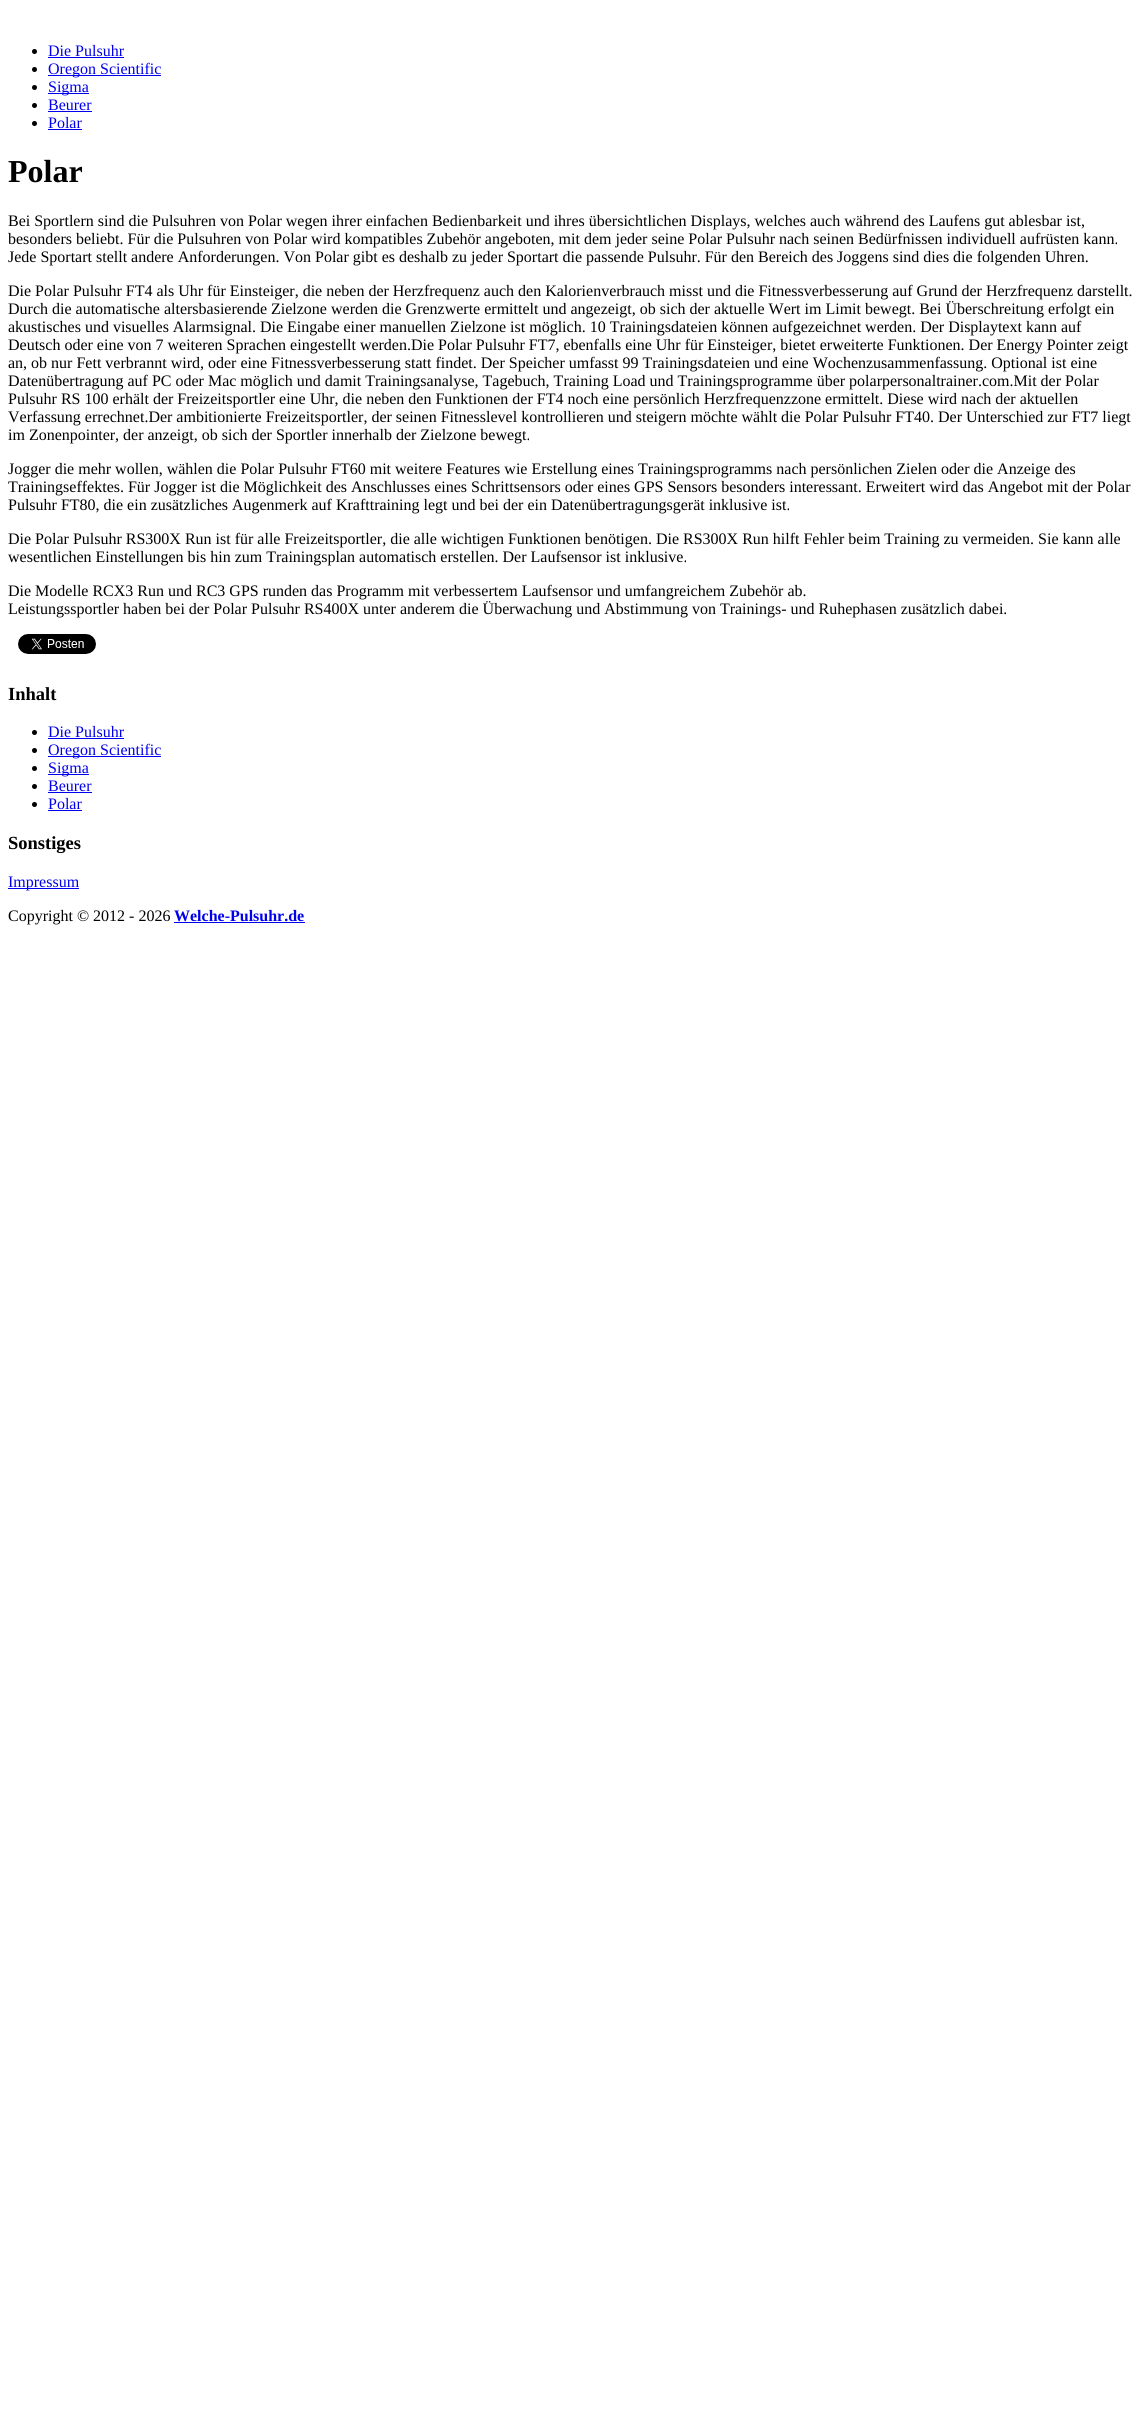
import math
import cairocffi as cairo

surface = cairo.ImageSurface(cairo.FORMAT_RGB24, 1144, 2415)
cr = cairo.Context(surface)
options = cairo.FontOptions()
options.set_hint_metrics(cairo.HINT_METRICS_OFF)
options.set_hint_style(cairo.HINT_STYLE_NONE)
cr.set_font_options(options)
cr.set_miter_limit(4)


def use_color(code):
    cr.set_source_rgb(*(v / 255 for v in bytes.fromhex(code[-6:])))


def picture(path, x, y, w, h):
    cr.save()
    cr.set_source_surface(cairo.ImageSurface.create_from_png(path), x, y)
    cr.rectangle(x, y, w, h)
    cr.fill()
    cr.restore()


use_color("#ffffff")
cr.paint()
use_color("#000000")
cr.arc(34.5, 51.5, 2.5, 0, 2 * math.pi)
cr.fill()
cr.select_font_face("Liberation Serif")
cr.set_font_size(16)
use_color("#0000ee")
cr.move_to(48, 56)
cr.show_text("Die Pulsuhr")
cr.rectangle(48, 57, 76, 1)
cr.fill()
use_color("#000000")
cr.arc(34.5, 69.5, 2.5, 0, 2 * math.pi)
cr.fill()
use_color("#0000ee")
cr.rectangle(48, 75, 113, 1)
cr.fill()
cr.move_to(48, 74)
cr.show_text("Oregon Scientific")
use_color("#000000")
cr.new_path()
cr.arc(34.5, 87.5, 2.5, 0, 2 * math.pi)
cr.fill()
use_color("#0000ee")
cr.rectangle(48, 93, 41, 1)
cr.fill()
cr.move_to(48, 92)
cr.show_text("Sigma")
use_color("#000000")
cr.new_path()
cr.arc(34.5, 105.5, 2.5, 0, 2 * math.pi)
cr.fill()
use_color("#0000ee")
cr.move_to(48, 110)
cr.show_text("Beurer")
cr.rectangle(48, 111, 44, 1)
cr.fill()
use_color("#000000")
cr.arc(34.5, 123.5, 2.5, 0, 2 * math.pi)
cr.fill()
use_color("#0000ee")
cr.move_to(48, 128)
cr.show_text("Polar")
cr.rectangle(48, 129, 34, 1)
cr.fill()
cr.select_font_face("Liberation Serif", cairo.FONT_SLANT_NORMAL, cairo.FONT_WEIGHT_BOLD)
cr.set_font_size(32)
use_color("#000000")
cr.move_to(8, 182)
cr.show_text("Polar")
cr.select_font_face("Liberation Serif")
cr.set_font_size(16)
cr.move_to(8, 226)
cr.show_text("Bei Sportlern sind die Pulsuhren von Polar wegen ihrer einfachen Bedienbarkeit und ihres übersichtlichen Displays, welches auch während des Laufens gut ablesbar ist,")
cr.move_to(8, 244)
cr.show_text("besonders beliebt. Für die Pulsuhren von Polar wird kompatibles Zubehör angeboten, mit dem jeder seine Polar Pulsuhr nach seinen Bedürfnissen individuell aufrüsten kann.")
cr.move_to(8, 262)
cr.show_text("Jede Sportart stellt andere Anforderungen. Von Polar gibt es deshalb zu jeder Sportart die passende Pulsuhr. Für den Bereich des Joggens sind dies die folgenden Uhren.")
cr.move_to(8, 296)
cr.show_text("Die Polar Pulsuhr FT4 als Uhr für Einsteiger, die neben der Herzfrequenz auch den Kalorienverbrauch misst und die Fitnessverbesserung auf Grund der Herzfrequenz darstellt.")
cr.move_to(8, 314)
cr.show_text("Durch die automatische altersbasierende Zielzone werden die Grenzwerte ermittelt und angezeigt, ob sich der aktuelle Wert im Limit bewegt. Bei Überschreitung erfolgt ein")
cr.move_to(8, 332)
cr.show_text("akustisches und visuelles Alarmsignal. Die Eingabe einer manuellen Zielzone ist möglich. 10 Trainingsdateien können aufgezeichnet werden. Der Displaytext kann auf")
cr.move_to(8, 350)
cr.show_text("Deutsch oder eine von 7 weiteren Sprachen eingestellt werden.Die Polar Pulsuhr FT7, ebenfalls eine Uhr für Einsteiger, bietet erweiterte Funktionen. Der Energy Pointer zeigt")
cr.move_to(8, 368)
cr.show_text("an, ob nur Fett verbrannt wird, oder eine Fitnessverbesserung statt findet. Der Speicher umfasst 99 Trainingsdateien und eine Wochenzusammenfassung. Optional ist eine")
cr.move_to(8, 386)
cr.show_text("Datenübertragung auf PC oder Mac möglich und damit Trainingsanalyse, Tagebuch, Training Load und Trainingsprogramme über polarpersonaltrainer.com.Mit der Polar")
cr.move_to(8, 404)
cr.show_text("Pulsuhr RS 100 erhält der Freizeitsportler eine Uhr, die neben den Funktionen der FT4 noch eine persönlich Herzfrequenzzone ermittelt. Diese wird nach der aktuellen")
cr.move_to(8, 422)
cr.show_text("Verfassung errechnet.Der ambitionierte Freizeitsportler, der seinen Fitnesslevel kontrollieren und steigern möchte wählt die Polar Pulsuhr FT40. Der Unterschied zur FT7 liegt")
cr.move_to(8, 440)
cr.show_text("im Zonenpointer, der anzeigt, ob sich der Sportler innerhalb der Zielzone bewegt.")
cr.move_to(8, 474)
cr.show_text("Jogger die mehr wollen, wählen die Polar Pulsuhr FT60 mit weitere Features wie Erstellung eines Trainingsprogramms nach persönlichen Zielen oder die Anzeige des")
cr.move_to(8, 492)
cr.show_text("Trainingseffektes. Für Jogger ist die Möglichkeit des Anschlusses eines Schrittsensors oder eines GPS Sensors besonders interessant. Erweitert wird das Angebot mit der Polar")
cr.move_to(8, 510)
cr.show_text("Pulsuhr FT80, die ein zusätzliches Augenmerk auf Krafttraining legt und bei der ein Datenübertragungsgerät inklusive ist.")
cr.move_to(8, 544)
cr.show_text("Die Polar Pulsuhr RS300X Run ist für alle Freizeitsportler, die alle wichtigen Funktionen benötigen. Die RS300X Run hilft Fehler beim Training zu vermeiden. Sie kann alle")
cr.move_to(8, 562)
cr.show_text("wesentlichen Einstellungen bis hin zum Trainingsplan automatisch erstellen. Der Laufsensor ist inklusive.")
cr.move_to(8, 596)
cr.show_text("Die Modelle RCX3 Run und RC3 GPS runden das Programm mit verbessertem Laufsensor und umfangreichem Zubehör ab.")
cr.move_to(8, 614)
cr.show_text("Leistungssportler haben bei der Polar Pulsuhr RS400X unter anderem die Überwachung und Abstimmung von Trainings- und Ruhephasen zusätzlich dabei.")
picture("img1.png", 18, 634, 78, 20)
cr.select_font_face("Liberation Serif", cairo.FONT_SLANT_NORMAL, cairo.FONT_WEIGHT_BOLD)
cr.set_font_size(18.5)
cr.move_to(8, 700)
cr.show_text("Inhalt")
cr.new_path()
cr.arc(34.5, 732.5, 2.5, 0, 2 * math.pi)
cr.fill()
cr.select_font_face("Liberation Serif")
cr.set_font_size(16)
use_color("#0000ee")
cr.move_to(48, 737)
cr.show_text("Die Pulsuhr")
cr.rectangle(48, 738, 76, 1)
cr.fill()
use_color("#000000")
cr.arc(34.5, 750.5, 2.5, 0, 2 * math.pi)
cr.fill()
use_color("#0000ee")
cr.rectangle(48, 756, 113, 1)
cr.fill()
cr.move_to(48, 755)
cr.show_text("Oregon Scientific")
use_color("#000000")
cr.new_path()
cr.arc(34.5, 768.5, 2.5, 0, 2 * math.pi)
cr.fill()
use_color("#0000ee")
cr.rectangle(48, 774, 41, 1)
cr.fill()
cr.move_to(48, 773)
cr.show_text("Sigma")
use_color("#000000")
cr.new_path()
cr.arc(34.5, 786.5, 2.5, 0, 2 * math.pi)
cr.fill()
use_color("#0000ee")
cr.move_to(48, 791)
cr.show_text("Beurer")
cr.rectangle(48, 792, 44, 1)
cr.fill()
use_color("#000000")
cr.arc(34.5, 804.5, 2.5, 0, 2 * math.pi)
cr.fill()
use_color("#0000ee")
cr.move_to(48, 809)
cr.show_text("Polar")
cr.rectangle(48, 810, 34, 1)
cr.fill()
cr.select_font_face("Liberation Serif", cairo.FONT_SLANT_NORMAL, cairo.FONT_WEIGHT_BOLD)
cr.set_font_size(18.5)
use_color("#000000")
cr.move_to(8, 849)
cr.show_text("Sonstiges")
use_color("#0000ee")
cr.rectangle(8, 888, 71, 1)
cr.fill()
cr.select_font_face("Liberation Serif")
cr.set_font_size(16)
cr.move_to(8, 887)
cr.show_text("Impressum")
use_color("#000000")
cr.move_to(8, 921)
cr.show_text("Copyright © 2012 - 2026")
cr.select_font_face("Liberation Serif", cairo.FONT_SLANT_NORMAL, cairo.FONT_WEIGHT_BOLD)
use_color("#0000ee")
cr.move_to(174, 921)
cr.show_text("Welche-Pulsuhr.de")
cr.rectangle(174, 922, 131, 1)
cr.fill()
surface.write_to_png("result.png")
